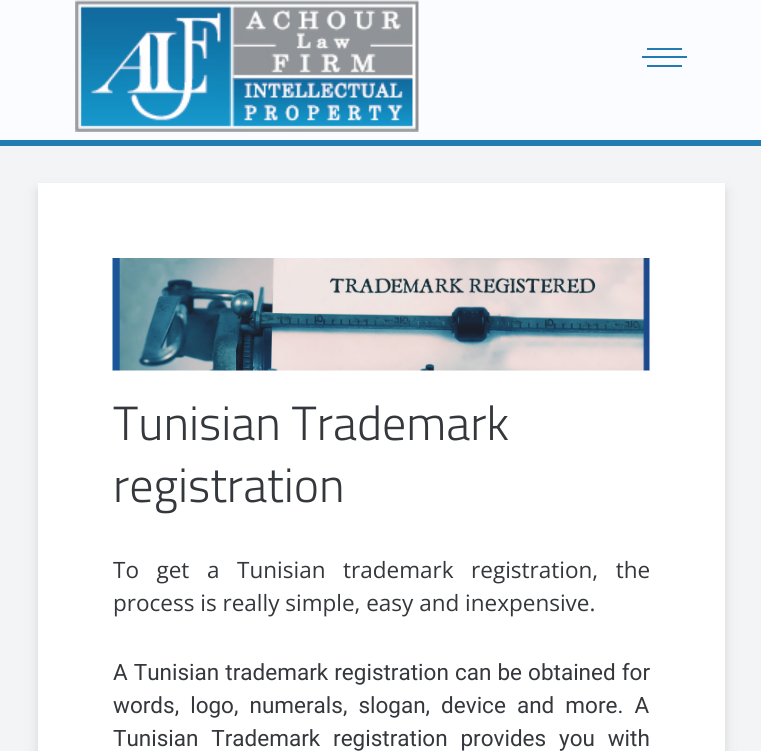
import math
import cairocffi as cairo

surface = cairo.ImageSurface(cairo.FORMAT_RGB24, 761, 751)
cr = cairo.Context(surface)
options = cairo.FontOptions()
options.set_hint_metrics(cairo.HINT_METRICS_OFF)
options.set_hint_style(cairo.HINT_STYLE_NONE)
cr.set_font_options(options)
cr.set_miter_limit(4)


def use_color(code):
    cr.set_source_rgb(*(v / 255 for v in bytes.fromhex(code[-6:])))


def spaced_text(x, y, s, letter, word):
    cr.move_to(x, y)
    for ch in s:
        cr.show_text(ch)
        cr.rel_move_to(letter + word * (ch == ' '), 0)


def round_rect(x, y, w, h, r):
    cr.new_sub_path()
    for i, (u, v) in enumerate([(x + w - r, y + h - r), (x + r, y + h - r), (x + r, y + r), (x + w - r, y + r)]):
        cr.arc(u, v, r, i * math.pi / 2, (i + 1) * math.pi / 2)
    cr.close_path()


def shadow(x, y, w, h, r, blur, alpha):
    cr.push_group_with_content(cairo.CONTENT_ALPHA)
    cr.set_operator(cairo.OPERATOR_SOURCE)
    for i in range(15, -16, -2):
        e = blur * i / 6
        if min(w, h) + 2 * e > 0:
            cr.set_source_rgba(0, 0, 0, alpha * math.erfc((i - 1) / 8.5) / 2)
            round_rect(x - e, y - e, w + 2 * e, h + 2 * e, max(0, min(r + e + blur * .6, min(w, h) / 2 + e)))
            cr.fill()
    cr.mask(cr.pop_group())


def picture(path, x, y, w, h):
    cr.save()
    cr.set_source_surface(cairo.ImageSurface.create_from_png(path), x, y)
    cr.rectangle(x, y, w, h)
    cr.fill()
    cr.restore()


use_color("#f2f4f5")
cr.paint()
use_color("#227cb1")
cr.rectangle(0, 140, 761, 6)
cr.fill()
use_color("#fbfcff")
cr.rectangle(0, 0, 761, 140)
cr.fill()
picture("img1.png", 75, 0, 344, 132)
use_color("#227cb1")
cr.new_path()
cr.move_to(647, 48)
cr.line_to(682, 48)
cr.line_to(682, 50)
cr.line_to(647, 50)
cr.close_path()
cr.move_to(647, 65)
cr.line_to(682, 65)
cr.line_to(682, 67)
cr.line_to(647, 67)
cr.close_path()
cr.move_to(642, 56)
cr.line_to(687, 56)
cr.line_to(687, 58)
cr.line_to(642, 58)
cr.close_path()
cr.fill()
use_color("#a0a6a8")
shadow(38, 191, 687, 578, 0, 6, 0.35)
use_color("#ffffff")
cr.rectangle(38, 183, 687, 568)
cr.fill()
picture("img2.png", 112, 258, 538, 113)
cr.select_font_face("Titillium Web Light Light")
cr.set_font_size(48)
use_color("#34373b")
cr.move_to(113, 440)
cr.show_text("Tunisian Trademark")
cr.move_to(113, 502)
cr.show_text("registration")
cr.select_font_face("Open Sans")
cr.set_font_size(22.5)
spaced_text(113, 578, "To get a Tunisian trademark registration, the", 0, 11.75)
cr.move_to(113, 611)
cr.show_text("process is really simple, easy and inexpensive.")
cr.select_font_face("Roboto")
spaced_text(113, 680, "A Tunisian trademark registration can be obtained for", 0, 0.5)
spaced_text(113, 713, "words, logo, numerals, slogan, device and more. A", 0, 5.5)
spaced_text(113, 746, "Tunisian Trademark registration provides you with", 0, 7.25)
surface.write_to_png("result.png")
